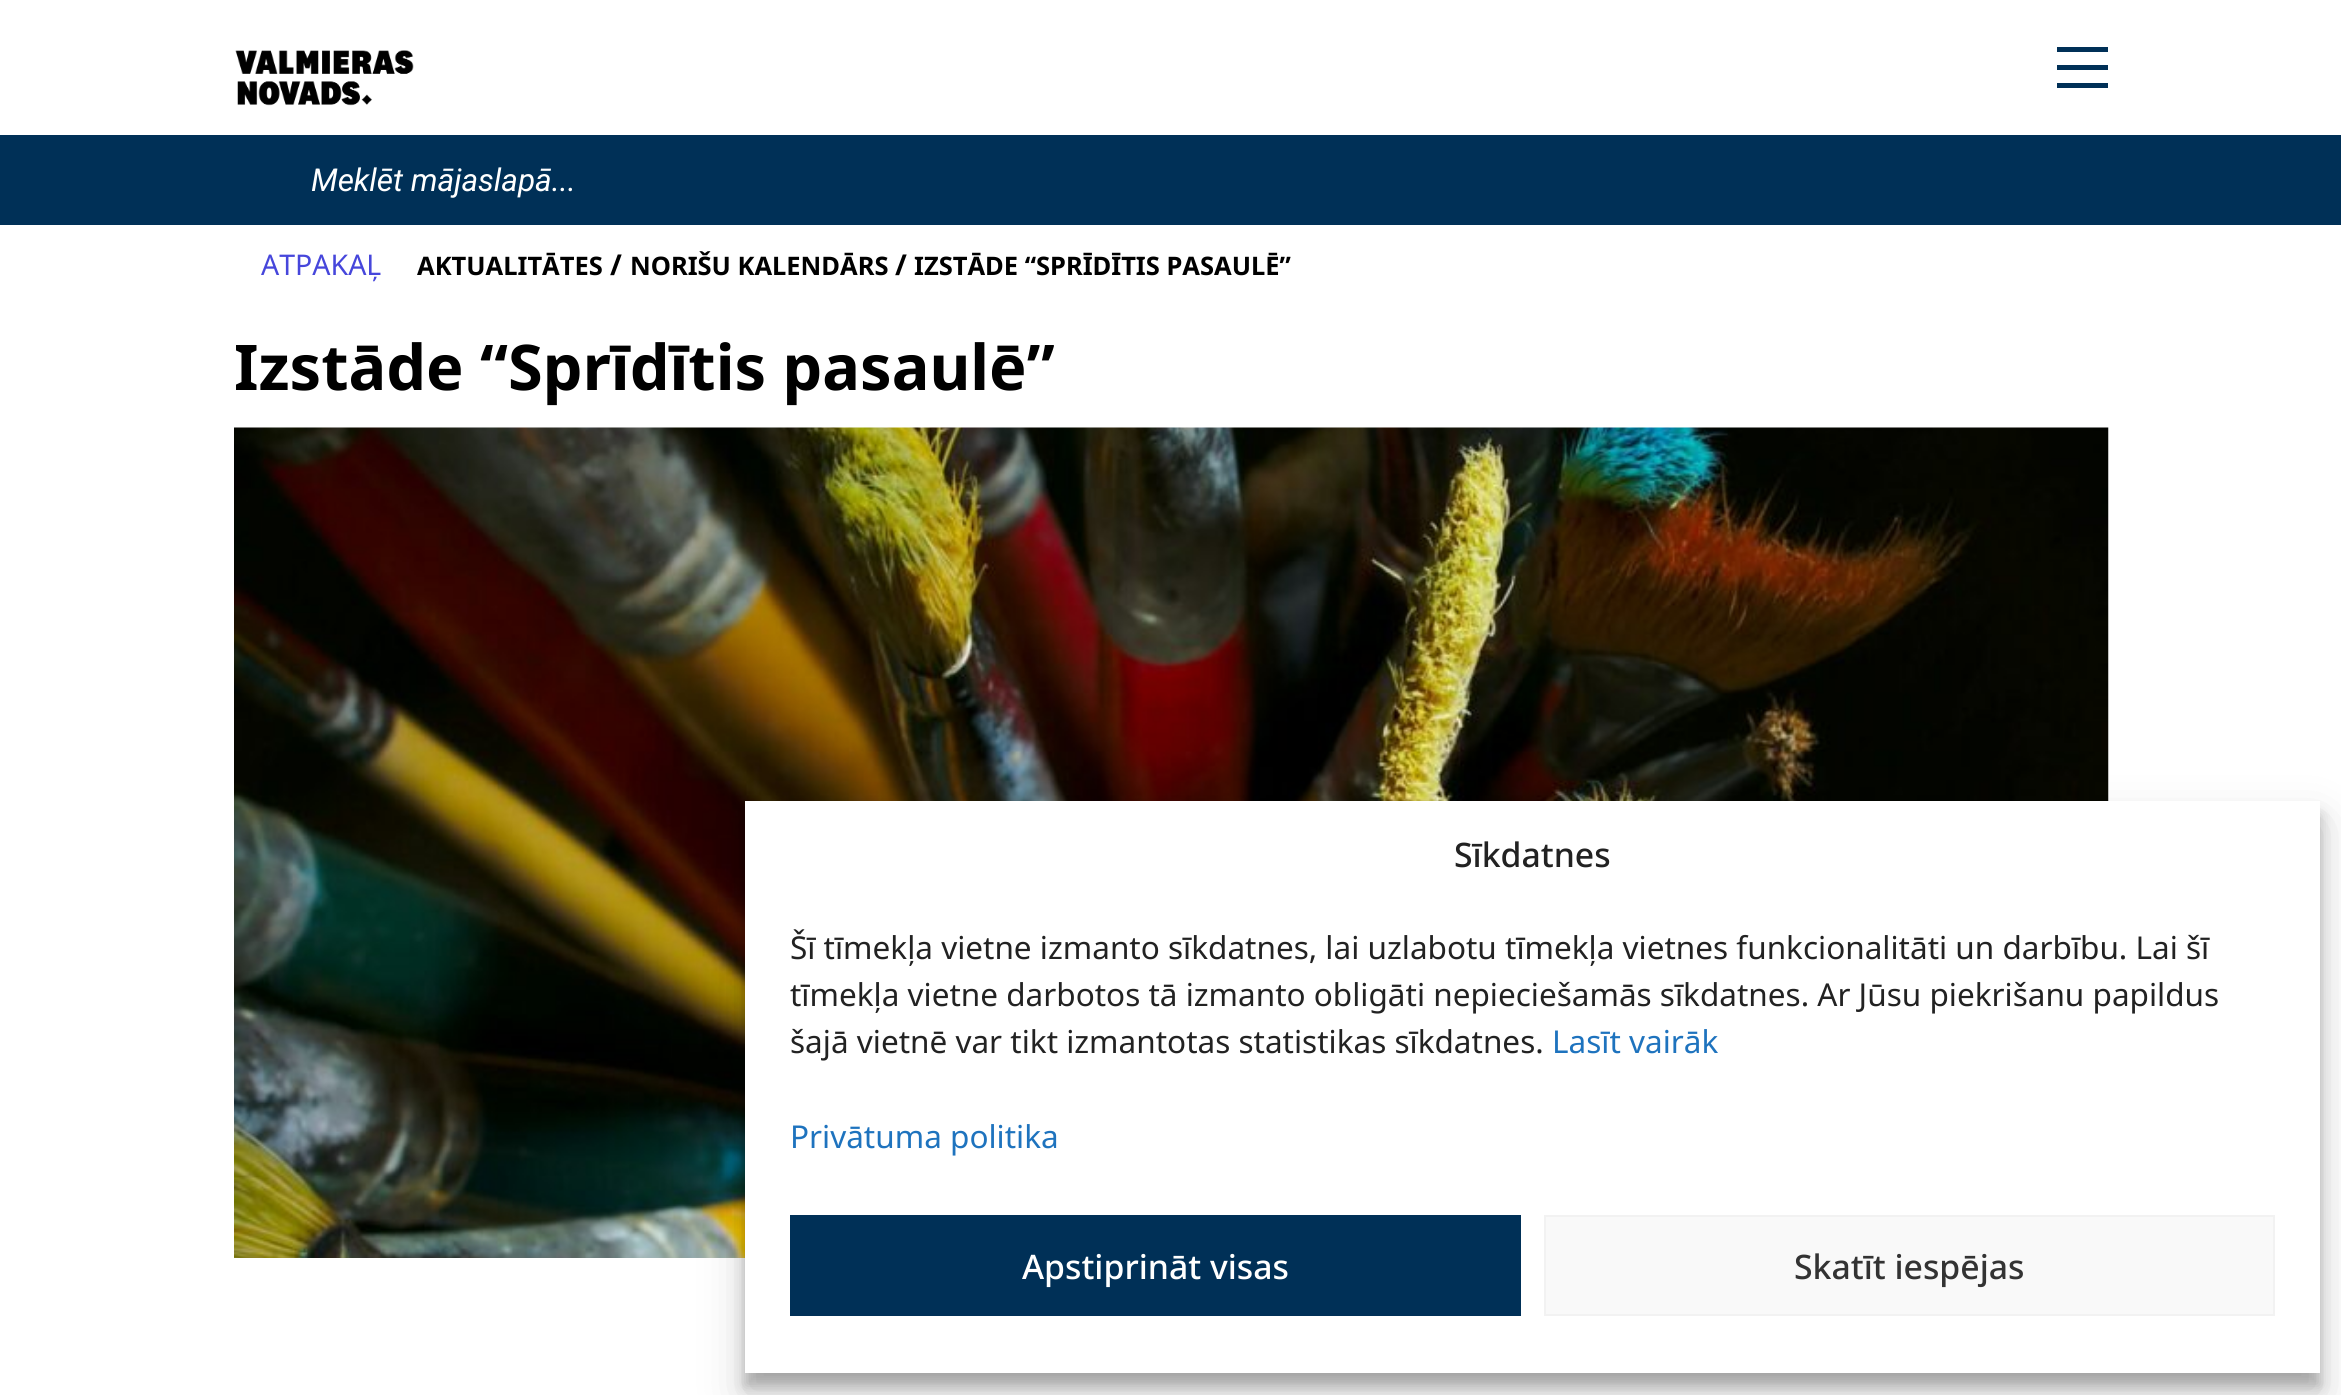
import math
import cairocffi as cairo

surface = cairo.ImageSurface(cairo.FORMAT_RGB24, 2341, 1395)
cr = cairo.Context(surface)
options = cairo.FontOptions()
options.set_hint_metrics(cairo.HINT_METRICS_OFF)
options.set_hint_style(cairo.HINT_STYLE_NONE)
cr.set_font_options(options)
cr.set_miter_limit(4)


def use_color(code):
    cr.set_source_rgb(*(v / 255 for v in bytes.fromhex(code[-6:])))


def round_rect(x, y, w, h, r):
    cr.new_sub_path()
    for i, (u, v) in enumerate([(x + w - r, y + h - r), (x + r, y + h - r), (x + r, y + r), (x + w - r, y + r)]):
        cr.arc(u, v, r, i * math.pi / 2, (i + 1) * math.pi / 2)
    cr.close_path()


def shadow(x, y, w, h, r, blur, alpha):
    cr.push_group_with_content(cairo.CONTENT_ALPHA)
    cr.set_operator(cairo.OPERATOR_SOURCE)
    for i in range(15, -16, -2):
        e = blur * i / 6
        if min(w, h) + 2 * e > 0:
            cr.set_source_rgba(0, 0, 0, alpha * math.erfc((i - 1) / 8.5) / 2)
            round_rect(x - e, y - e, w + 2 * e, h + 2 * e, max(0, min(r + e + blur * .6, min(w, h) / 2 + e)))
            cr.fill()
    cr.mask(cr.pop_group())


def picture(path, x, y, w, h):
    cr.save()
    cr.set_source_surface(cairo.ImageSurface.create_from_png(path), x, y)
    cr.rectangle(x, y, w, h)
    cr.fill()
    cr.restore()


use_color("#ffffff")
cr.paint()
picture("img1.png", 235, 50, 179, 56)
use_color("#003057")
cr.rectangle(2057, 47, 51, 5)
cr.fill()
cr.rectangle(2057, 65, 51, 5)
cr.fill()
cr.rectangle(2057, 83, 51, 5)
cr.fill()
cr.rectangle(0, 135, 2341, 90)
cr.fill()
cr.select_font_face("Roboto", cairo.FONT_SLANT_ITALIC)
cr.set_font_size(31.5)
use_color("#ffffff")
cr.move_to(311, 191)
cr.show_text("Meklēt mājaslapā...")
cr.select_font_face("Noto Sans")
cr.set_font_size(28.5)
use_color("#4646db")
cr.move_to(261, 275)
cr.show_text("ATPAKAĻ")
cr.select_font_face("Noto Sans", cairo.FONT_SLANT_NORMAL, cairo.FONT_WEIGHT_BOLD)
cr.set_font_size(25.5)
use_color("#000000")
cr.move_to(417, 275)
cr.show_text("AKTUALITĀTES")
cr.set_font_size(28.5)
cr.move_to(610, 275)
cr.show_text("/")
cr.set_font_size(25.5)
cr.move_to(630, 275)
cr.show_text("NORIŠU KALENDĀRS")
cr.set_font_size(28.5)
cr.move_to(895, 275)
cr.show_text("/")
cr.set_font_size(25.5)
cr.move_to(914, 275)
cr.show_text("IZSTĀDE “SPRĪDĪTIS PASAULĒ”")
cr.set_font_size(63)
cr.move_to(234, 390)
cr.show_text("Izstāde “Sprīdītis pasaulē”")
picture("img2.png", 234, 427, 1875, 831)
use_color("#000000")
shadow(745, 815, 1575, 571, 0, 7, 0.23)
shadow(745, 824, 1575, 571, 0, 22.5, 0.19)
use_color("#ffffff")
cr.rectangle(745, 801, 1575, 572)
cr.fill()
cr.select_font_face("Noto Sans Medium")
cr.set_font_size(33.75)
use_color("#222222")
cr.move_to(1454, 867)
cr.show_text("Sīkdatnes")
cr.select_font_face("Noto Sans")
cr.set_font_size(31.5)
cr.move_to(790, 959)
cr.show_text("Šī tīmekļa vietne izmanto sīkdatnes, lai uzlabotu tīmekļa vietnes funkcionalitāti un darbību. Lai šī")
cr.move_to(790, 1006)
cr.show_text("tīmekļa vietne darbotos tā izmanto obligāti nepieciešamās sīkdatnes. Ar Jūsu piekrišanu papildus")
cr.move_to(790, 1053)
cr.show_text("šajā vietnē var tikt izmantotas statistikas sīkdatnes.")
use_color("#1e73be")
cr.move_to(1552, 1053)
cr.show_text("Lasīt vairāk")
cr.move_to(790, 1148)
cr.show_text("Privātuma politika")
use_color("#003057")
cr.rectangle(790, 1215, 731, 101)
cr.fill()
cr.select_font_face("Noto Sans Medium")
cr.set_font_size(33.75)
use_color("#ffffff")
cr.move_to(1022, 1279)
cr.show_text("Apstiprināt visas")
use_color("#f9f9f9")
cr.rectangle(1545, 1216, 729, 99)
cr.fill_preserve()
use_color("#f2f2f2")
cr.stroke()
use_color("#333333")
cr.move_to(1794, 1279)
cr.show_text("Skatīt iespējas")
surface.write_to_png("result.png")
